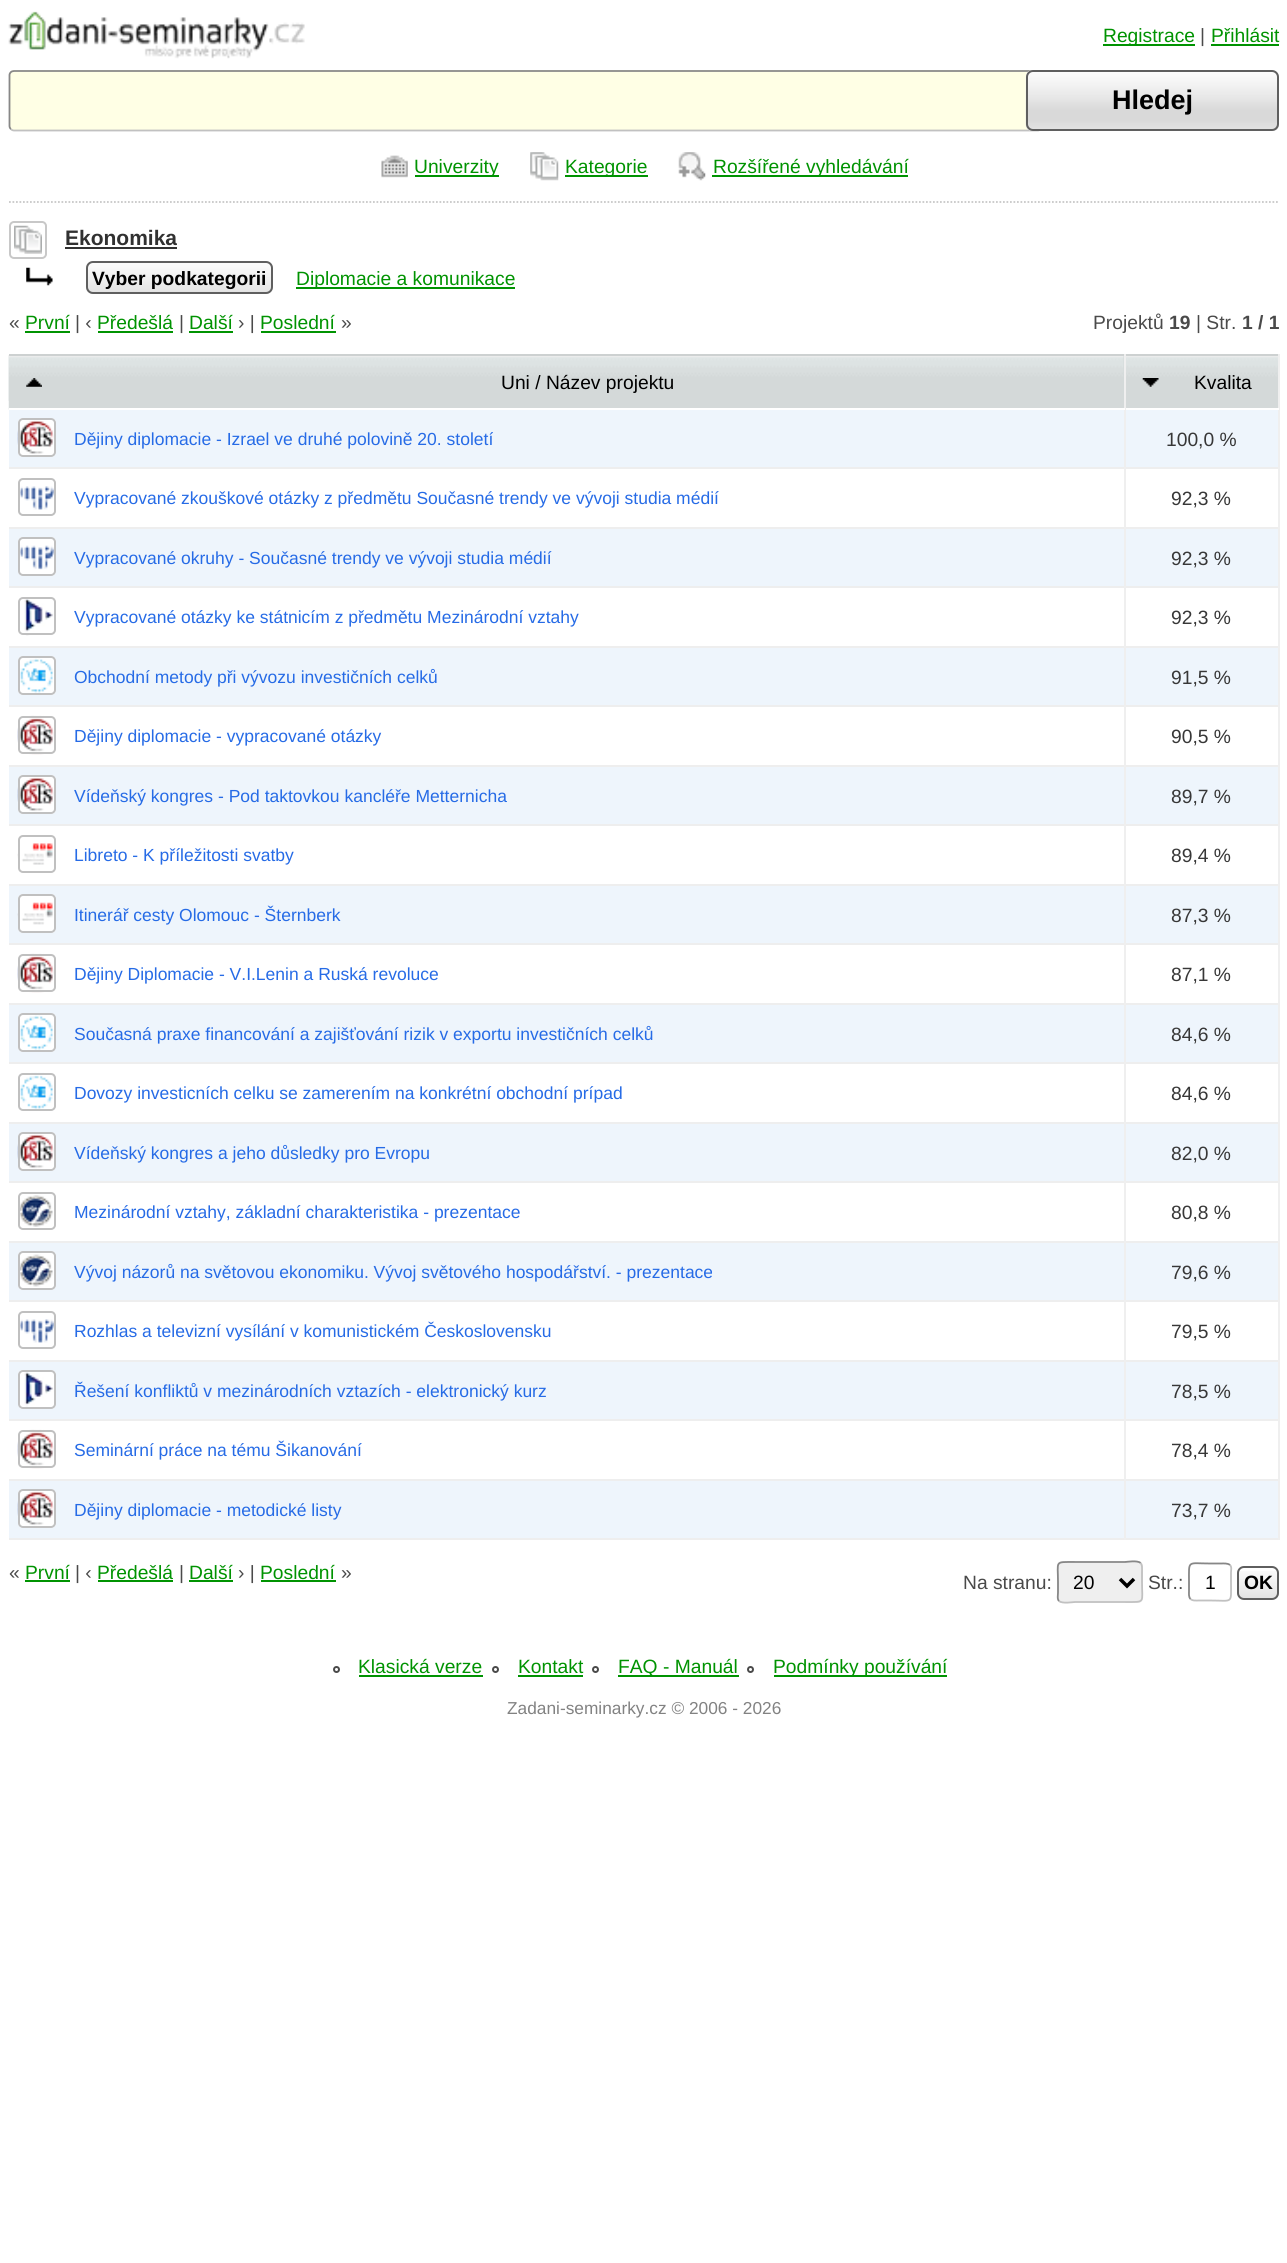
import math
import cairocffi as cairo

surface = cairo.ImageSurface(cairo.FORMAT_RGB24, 1287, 2263)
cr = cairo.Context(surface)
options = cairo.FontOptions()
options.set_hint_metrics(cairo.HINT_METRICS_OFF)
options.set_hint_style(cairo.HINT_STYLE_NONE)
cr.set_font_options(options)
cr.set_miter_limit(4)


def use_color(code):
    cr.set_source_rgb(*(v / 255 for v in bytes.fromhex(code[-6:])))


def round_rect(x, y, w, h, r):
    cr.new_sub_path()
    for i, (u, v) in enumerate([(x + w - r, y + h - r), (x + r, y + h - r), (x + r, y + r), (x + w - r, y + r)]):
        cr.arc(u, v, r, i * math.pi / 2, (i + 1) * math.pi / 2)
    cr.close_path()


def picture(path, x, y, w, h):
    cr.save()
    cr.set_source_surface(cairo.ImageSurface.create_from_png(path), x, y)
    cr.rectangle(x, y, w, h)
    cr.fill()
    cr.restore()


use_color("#ffffff")
cr.paint()
picture("img1.png", 8, 11, 297, 48)
use_color("#009301")
cr.rectangle(1103, 44, 92, 2)
cr.fill()
cr.select_font_face("Liberation Sans")
cr.set_font_size(19.25)
cr.move_to(1103, 42)
cr.show_text("Registrace")
use_color("#4a4a4a")
cr.move_to(1200, 42)
cr.show_text("|")
use_color("#009301")
cr.move_to(1211, 42)
cr.show_text("Přihlásit")
cr.rectangle(1211, 44, 68, 2)
cr.fill()
use_color("#ffffe5")
round_rect(9, 70, 1034, 61, 5)
cr.fill()
cr.new_path()
cr.move_to(1041, 72)
cr.curve_to(1041.5, 73, 1042, 74, 1042, 75)
cr.line_to(1042, 126)
cr.curve_to(1042, 127, 1041.5, 128.5, 1041, 129)
cr.curve_to(1040, 130, 1039, 130.5, 1038, 130.5)
cr.line_to(14, 130.5)
cr.curve_to(13, 130.5, 11.5, 130, 11, 129)
use_color("#c1c1c1")
cr.set_line_width(1.8)
cr.stroke()
cr.new_path()
cr.move_to(11, 129)
cr.curve_to(10, 128.5, 9.5, 127, 9.5, 126)
cr.line_to(9.5, 75)
cr.curve_to(9.5, 74, 10, 73, 11, 72)
cr.curve_to(11.5, 71.5, 13, 71, 14, 71)
cr.line_to(1038, 71)
cr.curve_to(1039, 71, 1040, 71.5, 1041, 72)
use_color("#878787")
cr.stroke()
picture("img2.png", 1025, 70, 254, 61)
round_rect(1027, 71, 251, 59, 6)
use_color("#5f5f5f")
cr.set_line_width(2)
cr.stroke()
cr.select_font_face("Liberation Sans", cairo.FONT_SLANT_NORMAL, cairo.FONT_WEIGHT_BOLD)
cr.set_font_size(27)
use_color("#000000")
cr.move_to(1112, 109)
cr.show_text("Hledej")
picture("img3.png", 381, 155, 27, 23)
use_color("#009301")
cr.rectangle(415, 175, 84, 2)
cr.fill()
cr.select_font_face("Liberation Sans")
cr.set_font_size(19.25)
cr.move_to(414, 173)
cr.show_text("Univerzity")
picture("img4.png", 530, 152, 29, 29)
cr.rectangle(565, 175, 83, 2)
cr.fill()
cr.move_to(565, 173)
cr.show_text("Kategorie")
picture("img5.png", 678, 152, 28, 29)
cr.rectangle(712, 175, 196, 2)
cr.fill()
cr.move_to(713, 173)
cr.show_text("Rozšířené vyhledávání")
cr.new_path()
cr.move_to(9, 202)
cr.line_to(1279, 202)
use_color("#c8c8c8")
cr.set_line_width(1.8)
cr.set_dash([1.75, 1.75])
cr.stroke()
picture("img6.png", 14, 225, 28, 29)
round_rect(10, 222, 36, 36, 4)
cr.set_line_width(2)
cr.set_dash([])
cr.stroke()
cr.select_font_face("Liberation Sans", cairo.FONT_SLANT_NORMAL, cairo.FONT_WEIGHT_BOLD)
cr.set_font_size(21)
use_color("#313131")
cr.move_to(65, 245)
cr.show_text("Ekonomika")
cr.rectangle(65, 247, 112, 2)
cr.fill()
picture("img7.png", 26, 267, 27, 19)
picture("img8.png", 86, 261, 187, 33)
round_rect(87, 262, 185, 31, 6)
use_color("#5f5f5f")
cr.stroke()
cr.set_font_size(19.25)
use_color("#000000")
cr.move_to(92, 285)
cr.show_text("Vyber podkategorii")
use_color("#009301")
cr.rectangle(296, 287, 219, 2)
cr.fill()
cr.select_font_face("Liberation Sans")
cr.move_to(296, 285)
cr.show_text("Diplomacie a komunikace")
use_color("#4a4a4a")
cr.move_to(9, 329)
cr.show_text("«")
use_color("#009301")
cr.move_to(25, 329)
cr.show_text("První")
cr.rectangle(25, 331, 45, 2)
cr.fill()
use_color("#4a4a4a")
cr.move_to(75, 329)
cr.show_text("| ‹")
use_color("#009301")
cr.move_to(97, 329)
cr.show_text("Předešlá")
cr.rectangle(98, 331, 75, 2)
cr.fill()
use_color("#4a4a4a")
cr.move_to(179, 329)
cr.show_text("|")
use_color("#009301")
cr.move_to(189, 329)
cr.show_text("Další")
cr.rectangle(189, 331, 44, 2)
cr.fill()
use_color("#4a4a4a")
cr.move_to(238, 329)
cr.show_text("› |")
use_color("#009301")
cr.move_to(260, 329)
cr.show_text("Poslední")
cr.rectangle(261, 331, 75, 2)
cr.fill()
use_color("#4a4a4a")
cr.move_to(341, 329)
cr.show_text("»")
cr.move_to(1093, 329)
cr.show_text("Projektů")
cr.select_font_face("Liberation Sans", cairo.FONT_SLANT_NORMAL, cairo.FONT_WEIGHT_BOLD)
cr.move_to(1169, 329)
cr.show_text("19")
cr.select_font_face("Liberation Sans")
cr.move_to(1196, 329)
cr.show_text("| Str.")
cr.select_font_face("Liberation Sans", cairo.FONT_SLANT_NORMAL, cairo.FONT_WEIGHT_BOLD)
cr.move_to(1242, 329)
cr.show_text("1 / 1")
use_color("#d4d9d9")
cr.rectangle(1123, 356, 1, 52)
cr.fill()
picture("img9.png", 8, 355, 1116, 55)
use_color("#cdd1d1")
cr.rectangle(9, 354, 1270, 2)
cr.fill()
use_color("#eeeeee")
cr.rectangle(9, 467, 1270, 2)
cr.fill()
cr.rectangle(9, 527, 1270, 2)
cr.fill()
cr.rectangle(9, 586, 1270, 2)
cr.fill()
cr.rectangle(9, 646, 1270, 2)
cr.fill()
cr.rectangle(9, 705, 1270, 2)
cr.fill()
cr.rectangle(9, 765, 1270, 2)
cr.fill()
cr.rectangle(9, 824, 1270, 2)
cr.fill()
cr.rectangle(9, 884, 1270, 2)
cr.fill()
cr.rectangle(9, 943, 1270, 2)
cr.fill()
cr.rectangle(9, 1003, 1270, 2)
cr.fill()
cr.rectangle(9, 1062, 1270, 2)
cr.fill()
cr.rectangle(9, 1122, 1270, 2)
cr.fill()
cr.rectangle(9, 1181, 1270, 2)
cr.fill()
cr.rectangle(9, 1241, 1270, 2)
cr.fill()
cr.rectangle(9, 1300, 1270, 2)
cr.fill()
cr.rectangle(9, 1360, 1270, 2)
cr.fill()
cr.rectangle(9, 1419, 1270, 2)
cr.fill()
cr.rectangle(9, 1479, 1270, 2)
cr.fill()
cr.rectangle(9, 1538, 1270, 2)
cr.fill()
use_color("#efefef")
cr.rectangle(1278, 408, 2, 1132)
cr.fill()
cr.rectangle(1278, 354, 2, 56)
cr.fill()
use_color("#eef5fc")
cr.rectangle(9, 410, 1269, 57)
cr.fill()
cr.rectangle(9, 529, 1269, 57)
cr.fill()
cr.rectangle(9, 648, 1269, 57)
cr.fill()
cr.rectangle(9, 767, 1269, 57)
cr.fill()
cr.rectangle(9, 886, 1269, 57)
cr.fill()
cr.rectangle(9, 1005, 1269, 57)
cr.fill()
cr.rectangle(9, 1124, 1269, 57)
cr.fill()
cr.rectangle(9, 1243, 1269, 57)
cr.fill()
cr.rectangle(9, 1362, 1269, 57)
cr.fill()
cr.rectangle(9, 1481, 1269, 57)
cr.fill()
use_color("#efefef")
cr.rectangle(1124, 408, 2, 1132)
cr.fill()
use_color("#ffffff")
cr.rectangle(1124, 408, 155, 2)
cr.fill()
use_color("#efefef")
cr.rectangle(1124, 354, 2, 56)
cr.fill()
use_color("#ffffff")
cr.rectangle(9, 408, 1116, 2)
cr.fill()
cr.select_font_face("Liberation Sans")
use_color("#000000")
cr.move_to(501, 389)
cr.show_text("Uni / Název projektu")
picture("img10.png", 1126, 356, 152, 52)
cr.move_to(1194, 389)
cr.show_text("Kvalita")
use_color("#ffffff")
round_rect(18, 418, 38, 39, 5)
cr.fill()
picture("img11.png", 17, 420, 37, 35)
round_rect(19, 419, 36, 37, 4)
use_color("#c0c0c0")
cr.stroke()
cr.set_font_size(17.5)
use_color("#266be6")
cr.move_to(74, 445)
cr.show_text("Dějiny diplomacie - Izrael ve druhé polovině 20. století")
cr.set_font_size(19.25)
use_color("#373737")
cr.move_to(1166, 446)
cr.show_text("100,0 %")
picture("img12.png", 20, 486, 34, 24)
round_rect(19, 479, 36, 36, 4)
use_color("#c0c0c0")
cr.stroke()
cr.set_font_size(17.5)
use_color("#266be6")
cr.move_to(74, 504)
cr.show_text("Vypracované zkouškové otázky z předmětu Současné trendy ve vývoji studia médií")
cr.set_font_size(19.25)
use_color("#373737")
cr.move_to(1171, 505)
cr.show_text("92,3 %")
use_color("#ffffff")
round_rect(18, 537, 38, 39, 5)
cr.fill()
picture("img13.png", 20, 545, 34, 25)
round_rect(19, 538, 36, 37, 4)
use_color("#c0c0c0")
cr.stroke()
cr.set_font_size(17.5)
use_color("#266be6")
cr.move_to(74, 564)
cr.show_text("Vypracované okruhy - Současné trendy ve vývoji studia médií")
cr.set_font_size(19.25)
use_color("#373737")
cr.move_to(1171, 565)
cr.show_text("92,3 %")
picture("img14.png", 24, 599, 30, 37)
round_rect(19, 598, 36, 36, 4)
use_color("#c0c0c0")
cr.stroke()
cr.set_font_size(17.5)
use_color("#266be6")
cr.move_to(74, 623)
cr.show_text("Vypracované otázky ke státnicím z předmětu Mezinárodní vztahy")
cr.set_font_size(19.25)
use_color("#373737")
cr.move_to(1171, 624)
cr.show_text("92,3 %")
use_color("#ffffff")
round_rect(18, 656, 38, 39, 5)
cr.fill()
picture("img15.png", 20, 658, 33, 35)
round_rect(19, 657, 36, 37, 4)
use_color("#c0c0c0")
cr.stroke()
cr.set_font_size(17.5)
use_color("#266be6")
cr.move_to(74, 683)
cr.show_text("Obchodní metody při vývozu investičních celků")
cr.set_font_size(19.25)
use_color("#373737")
cr.move_to(1171, 684)
cr.show_text("91,5 %")
picture("img16.png", 17, 715, 37, 40)
round_rect(19, 717, 36, 36, 4)
use_color("#c0c0c0")
cr.stroke()
cr.set_font_size(17.5)
use_color("#266be6")
cr.move_to(74, 742)
cr.show_text("Dějiny diplomacie - vypracované otázky")
cr.set_font_size(19.25)
use_color("#373737")
cr.move_to(1171, 743)
cr.show_text("90,5 %")
use_color("#ffffff")
round_rect(18, 775, 38, 39, 5)
cr.fill()
picture("img11.png", 17, 777, 37, 35)
round_rect(19, 776, 36, 37, 4)
use_color("#c0c0c0")
cr.stroke()
cr.set_font_size(17.5)
use_color("#266be6")
cr.move_to(74, 802)
cr.show_text("Vídeňský kongres - Pod taktovkou kancléře Metternicha")
cr.set_font_size(19.25)
use_color("#373737")
cr.move_to(1171, 803)
cr.show_text("89,7 %")
picture("img17.png", 17, 843, 36, 22)
round_rect(19, 836, 36, 36, 4)
use_color("#c0c0c0")
cr.stroke()
cr.set_font_size(17.5)
use_color("#266be6")
cr.move_to(74, 861)
cr.show_text("Libreto - K příležitosti svatby")
cr.set_font_size(19.25)
use_color("#373737")
cr.move_to(1171, 862)
cr.show_text("89,4 %")
use_color("#ffffff")
round_rect(18, 894, 38, 39, 5)
cr.fill()
picture("img18.png", 17, 902, 36, 23)
round_rect(19, 895, 36, 37, 4)
use_color("#c0c0c0")
cr.stroke()
cr.set_font_size(17.5)
use_color("#266be6")
cr.move_to(74, 921)
cr.show_text("Itinerář cesty Olomouc - Šternberk")
cr.set_font_size(19.25)
use_color("#373737")
cr.move_to(1171, 922)
cr.show_text("87,3 %")
picture("img19.png", 17, 953, 37, 40)
round_rect(19, 955, 36, 36, 4)
use_color("#c0c0c0")
cr.stroke()
cr.set_font_size(17.5)
use_color("#266be6")
cr.move_to(74, 980)
cr.show_text("Dějiny Diplomacie - V.I.Lenin a Ruská revoluce")
cr.set_font_size(19.25)
use_color("#373737")
cr.move_to(1171, 981)
cr.show_text("87,1 %")
use_color("#ffffff")
round_rect(18, 1013, 38, 39, 5)
cr.fill()
picture("img20.png", 20, 1015, 33, 35)
round_rect(19, 1014, 36, 37, 4)
use_color("#c0c0c0")
cr.stroke()
cr.set_font_size(17.5)
use_color("#266be6")
cr.move_to(74, 1040)
cr.show_text("Současná praxe financování a zajišťování rizik v exportu investičních celků")
cr.set_font_size(19.25)
use_color("#373737")
cr.move_to(1171, 1041)
cr.show_text("84,6 %")
picture("img21.png", 20, 1072, 33, 37)
round_rect(19, 1074, 36, 36, 4)
use_color("#c0c0c0")
cr.stroke()
cr.set_font_size(17.5)
use_color("#266be6")
cr.move_to(74, 1099)
cr.show_text("Dovozy investicních celku se zamerením na konkrétní obchodní prípad")
cr.set_font_size(19.25)
use_color("#373737")
cr.move_to(1171, 1100)
cr.show_text("84,6 %")
use_color("#ffffff")
round_rect(18, 1132, 38, 39, 5)
cr.fill()
picture("img11.png", 17, 1134, 37, 35)
round_rect(19, 1133, 36, 37, 4)
use_color("#c0c0c0")
cr.stroke()
cr.set_font_size(17.5)
use_color("#266be6")
cr.move_to(74, 1159)
cr.show_text("Vídeňský kongres a jeho důsledky pro Evropu")
cr.set_font_size(19.25)
use_color("#373737")
cr.move_to(1171, 1160)
cr.show_text("82,0 %")
picture("img22.png", 20, 1195, 33, 32)
round_rect(19, 1193, 36, 36, 4)
use_color("#c0c0c0")
cr.stroke()
cr.set_font_size(17.5)
use_color("#266be6")
cr.move_to(74, 1218)
cr.show_text("Mezinárodní vztahy, základní charakteristika - prezentace")
cr.set_font_size(19.25)
use_color("#373737")
cr.move_to(1171, 1219)
cr.show_text("80,8 %")
use_color("#ffffff")
round_rect(18, 1251, 38, 39, 5)
cr.fill()
picture("img23.png", 20, 1253, 33, 35)
round_rect(19, 1252, 36, 37, 4)
use_color("#c0c0c0")
cr.stroke()
cr.set_font_size(17.5)
use_color("#266be6")
cr.move_to(74, 1278)
cr.show_text("Vývoj názorů na světovou ekonomiku. Vývoj světového hospodářství. - prezentace")
cr.set_font_size(19.25)
use_color("#373737")
cr.move_to(1171, 1279)
cr.show_text("79,6 %")
picture("img24.png", 20, 1319, 34, 24)
round_rect(19, 1312, 36, 36, 4)
use_color("#c0c0c0")
cr.stroke()
cr.set_font_size(17.5)
use_color("#266be6")
cr.move_to(74, 1337)
cr.show_text("Rozhlas a televizní vysílání v komunistickém Československu")
cr.set_font_size(19.25)
use_color("#373737")
cr.move_to(1171, 1338)
cr.show_text("79,5 %")
use_color("#ffffff")
round_rect(18, 1370, 38, 39, 5)
cr.fill()
picture("img25.png", 24, 1372, 30, 35)
round_rect(19, 1371, 36, 37, 4)
use_color("#c0c0c0")
cr.stroke()
cr.set_font_size(17.5)
use_color("#266be6")
cr.move_to(74, 1397)
cr.show_text("Řešení konfliktů v mezinárodních vztazích - elektronický kurz")
cr.set_font_size(19.25)
use_color("#373737")
cr.move_to(1171, 1398)
cr.show_text("78,5 %")
picture("img26.png", 17, 1429, 37, 40)
round_rect(19, 1431, 36, 36, 4)
use_color("#c0c0c0")
cr.stroke()
cr.set_font_size(17.5)
use_color("#266be6")
cr.move_to(74, 1456)
cr.show_text("Seminární práce na tému Šikanování")
cr.set_font_size(19.25)
use_color("#373737")
cr.move_to(1171, 1457)
cr.show_text("78,4 %")
use_color("#ffffff")
round_rect(18, 1489, 38, 39, 5)
cr.fill()
picture("img11.png", 17, 1491, 37, 35)
round_rect(19, 1490, 36, 37, 4)
use_color("#c0c0c0")
cr.stroke()
cr.set_font_size(17.5)
use_color("#266be6")
cr.move_to(74, 1516)
cr.show_text("Dějiny diplomacie - metodické listy")
cr.set_font_size(19.25)
use_color("#373737")
cr.move_to(1171, 1517)
cr.show_text("73,7 %")
use_color("#4a4a4a")
cr.move_to(9, 1579)
cr.show_text("«")
use_color("#009301")
cr.move_to(25, 1579)
cr.show_text("První")
cr.rectangle(25, 1580, 45, 2)
cr.fill()
use_color("#4a4a4a")
cr.move_to(75, 1579)
cr.show_text("| ‹")
use_color("#009301")
cr.move_to(97, 1579)
cr.show_text("Předešlá")
cr.rectangle(98, 1580, 75, 2)
cr.fill()
use_color("#4a4a4a")
cr.move_to(179, 1579)
cr.show_text("|")
use_color("#009301")
cr.move_to(189, 1579)
cr.show_text("Další")
cr.rectangle(189, 1580, 44, 2)
cr.fill()
use_color("#4a4a4a")
cr.move_to(238, 1579)
cr.show_text("› |")
use_color("#009301")
cr.move_to(260, 1579)
cr.show_text("Poslední")
cr.rectangle(261, 1580, 75, 2)
cr.fill()
use_color("#4a4a4a")
cr.move_to(341, 1579)
cr.show_text("»")
cr.move_to(963, 1589)
cr.show_text("Na stranu:")
use_color("#efefef")
round_rect(1057, 1561, 86, 42, 5)
cr.fill()
cr.new_path()
cr.move_to(1140.5, 1563)
cr.curve_to(1142.5, 1565, 1142, 1569, 1142, 1571.5)
cr.line_to(1142, 1582)
cr.curve_to(1142, 1603.5, 1146, 1602, 1125, 1602)
cr.line_to(1075, 1602)
cr.curve_to(1073, 1602, 1062.5, 1604, 1059, 1601)
use_color("#c1c1c1")
cr.set_line_width(1.8)
cr.stroke()
cr.new_path()
cr.move_to(1059, 1601)
cr.curve_to(1057, 1599, 1058, 1595, 1058, 1592.5)
cr.line_to(1058, 1582)
cr.curve_to(1058, 1560.5, 1054, 1562, 1075, 1562)
cr.line_to(1125, 1562)
cr.curve_to(1126.5, 1562, 1137.5, 1560, 1140.5, 1563)
use_color("#878787")
cr.stroke()
cr.new_path()
cr.move_to(1120, 1579)
cr.line_to(1127, 1586)
cr.line_to(1134, 1579)
use_color("#000000")
cr.set_line_width(3.5)
cr.stroke()
cr.move_to(1073, 1589)
cr.show_text("20")
use_color("#4a4a4a")
cr.move_to(1148, 1589)
cr.show_text("Str.:")
cr.new_path()
cr.move_to(1230, 1565)
cr.curve_to(1232, 1567, 1231, 1570.5, 1231, 1572.5)
cr.line_to(1231, 1582)
cr.curve_to(1231, 1604.5, 1233.5, 1600.5, 1210, 1600.5)
cr.line_to(1199, 1600.5)
cr.curve_to(1196.5, 1600.5, 1192.5, 1601, 1190.5, 1599)
use_color("#c1c1c1")
cr.set_line_width(1.8)
cr.stroke()
cr.new_path()
cr.move_to(1190.5, 1599)
cr.curve_to(1188.5, 1597, 1189, 1593.5, 1189, 1591.5)
cr.line_to(1189, 1582)
cr.curve_to(1189, 1559.5, 1187, 1563.5, 1210, 1563.5)
cr.line_to(1221, 1563.5)
cr.curve_to(1223.5, 1563.5, 1227.5, 1563, 1230, 1565)
use_color("#878787")
cr.stroke()
use_color("#000000")
cr.move_to(1205, 1589)
cr.show_text("1")
picture("img27.png", 1237, 1571, 42, 29)
round_rect(1238, 1567, 40, 32, 6)
use_color("#5f5f5f")
cr.set_line_width(2)
cr.stroke()
cr.select_font_face("Liberation Sans", cairo.FONT_SLANT_NORMAL, cairo.FONT_WEIGHT_BOLD)
use_color("#000000")
cr.move_to(1244, 1589)
cr.show_text("OK")
cr.new_path()
cr.arc(336.5, 1669.5, 2.5, 0, 2 * math.pi)
use_color("#4a4a4a")
cr.stroke()
cr.select_font_face("Liberation Sans")
use_color("#009301")
cr.move_to(358, 1673)
cr.show_text("Klasická verze")
cr.rectangle(359, 1675, 124, 2)
cr.fill()
cr.arc(495.5, 1669.5, 2.5, 0, 2 * math.pi)
use_color("#4a4a4a")
cr.stroke()
use_color("#009301")
cr.move_to(518, 1673)
cr.show_text("Kontakt")
cr.rectangle(518, 1675, 65, 2)
cr.fill()
cr.arc(595.5, 1669.5, 2.5, 0, 2 * math.pi)
use_color("#4a4a4a")
cr.stroke()
use_color("#009301")
cr.rectangle(618, 1675, 121, 2)
cr.fill()
cr.move_to(618, 1673)
cr.show_text("FAQ - Manuál")
cr.new_path()
cr.arc(750.5, 1669.5, 2.5, 0, 2 * math.pi)
use_color("#4a4a4a")
cr.stroke()
use_color("#009301")
cr.rectangle(774, 1675, 173, 2)
cr.fill()
cr.move_to(773, 1673)
cr.show_text("Podmínky používání")
cr.set_font_size(17.3)
use_color("#828282")
cr.move_to(507, 1714)
cr.show_text("Zadani-seminarky.cz © 2006 - 2026")
surface.write_to_png("result.png")
